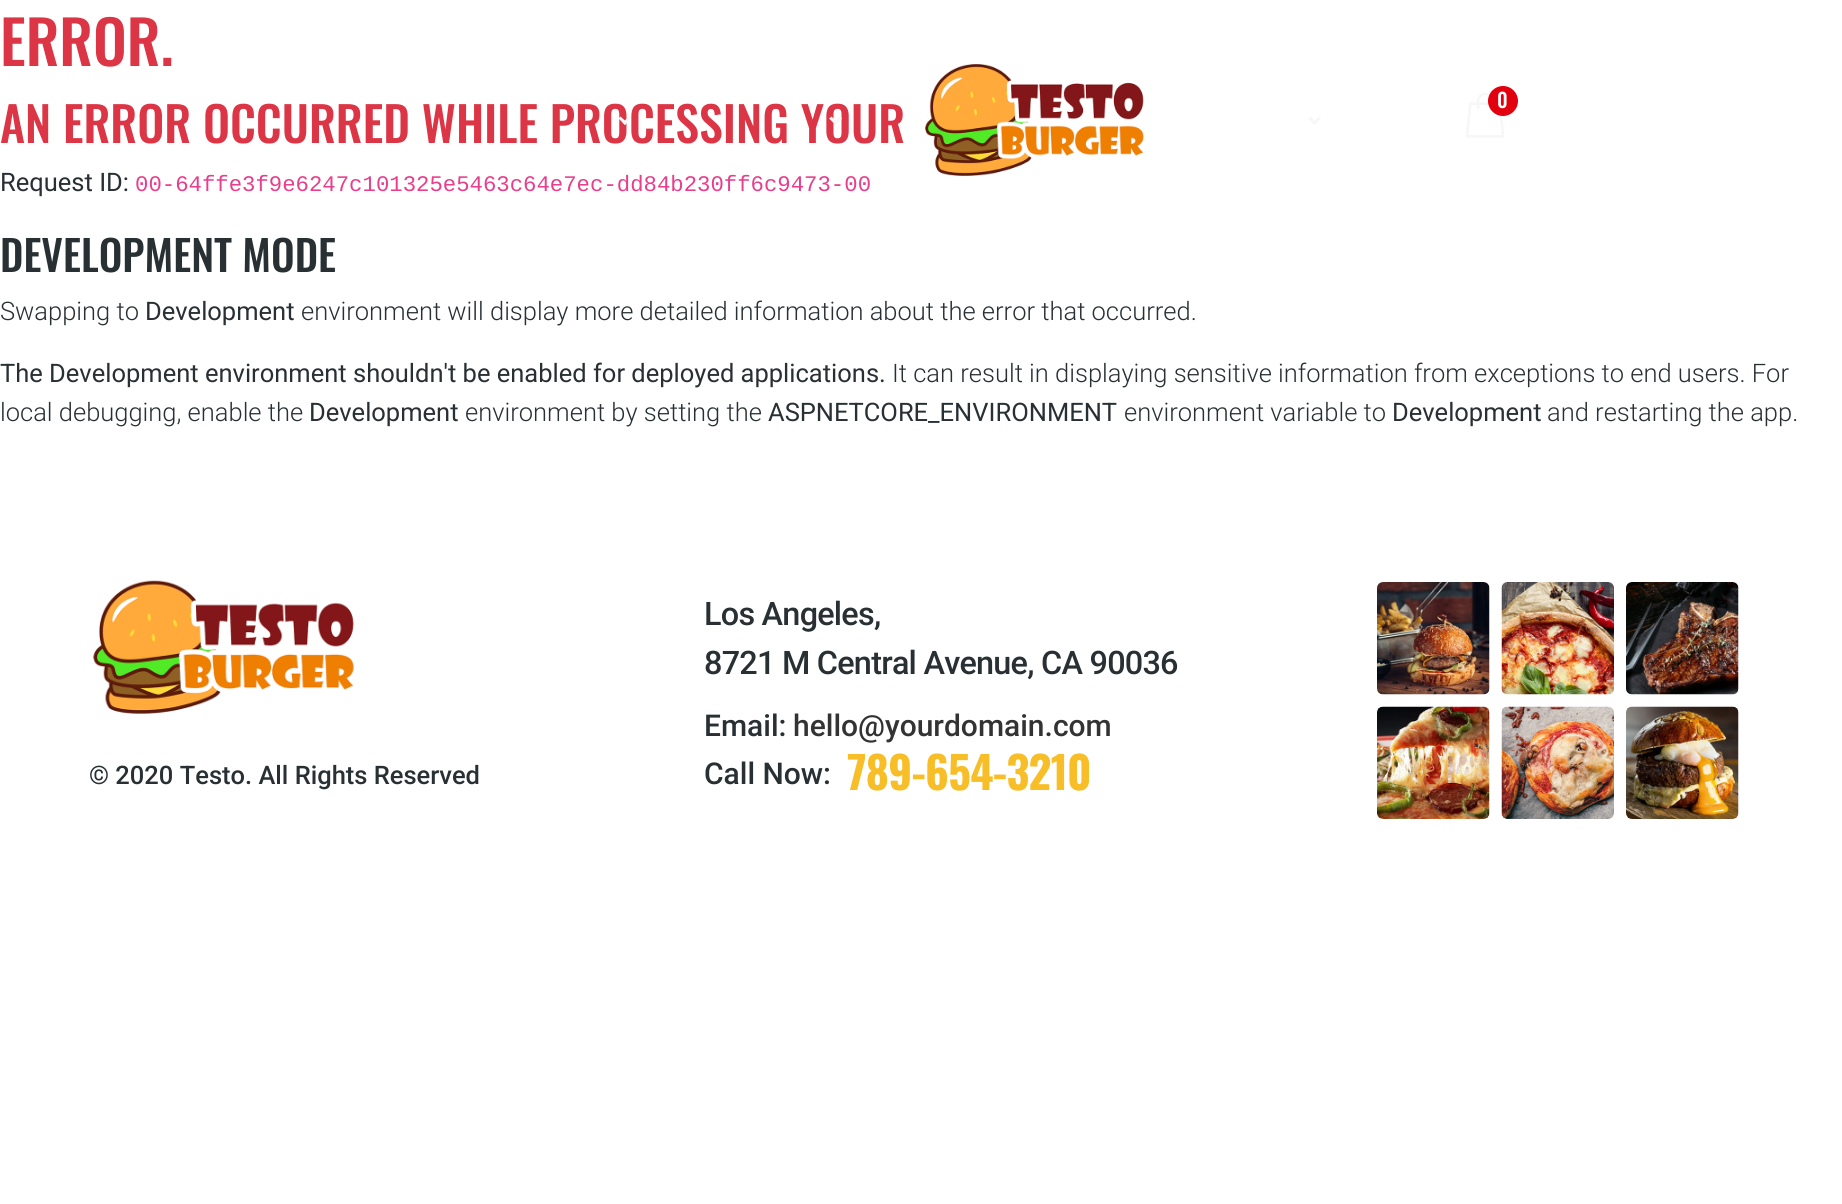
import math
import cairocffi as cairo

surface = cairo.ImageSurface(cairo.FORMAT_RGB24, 1842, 1204)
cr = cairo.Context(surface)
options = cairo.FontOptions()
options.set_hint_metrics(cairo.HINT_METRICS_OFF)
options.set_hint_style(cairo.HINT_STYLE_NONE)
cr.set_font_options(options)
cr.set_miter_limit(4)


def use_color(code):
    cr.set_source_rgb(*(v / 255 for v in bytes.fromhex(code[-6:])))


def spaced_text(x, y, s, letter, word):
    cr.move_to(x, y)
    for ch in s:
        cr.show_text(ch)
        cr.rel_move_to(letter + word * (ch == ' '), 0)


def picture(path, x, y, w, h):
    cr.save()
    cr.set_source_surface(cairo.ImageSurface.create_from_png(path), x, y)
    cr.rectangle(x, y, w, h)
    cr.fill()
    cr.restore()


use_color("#ffffff")
cr.paint()
cr.select_font_face("Oswald Medium")
cr.set_font_size(60)
use_color("#dc3545")
cr.move_to(0, 66)
cr.show_text("ERROR.")
cr.set_font_size(48)
cr.move_to(0, 143)
cr.show_text("AN ERROR OCCURRED WHILE PROCESSING YOUR")
cr.select_font_face("Roboto")
cr.set_font_size(25.5)
use_color("#283034")
cr.move_to(0, 191)
cr.show_text("Request ID:")
cr.select_font_face("Liberation Mono")
cr.set_font_size(22.3)
use_color("#e83e8c")
cr.move_to(135, 191)
cr.show_text("00-64ffe3f9e6247c101325e5463c64e7ec-dd84b230ff6c9473-00")
cr.select_font_face("Oswald Medium")
cr.set_font_size(42)
use_color("#283034")
cr.move_to(0, 272)
cr.show_text("DEVELOPMENT MODE")
cr.select_font_face("Roboto Light")
cr.set_font_size(25.5)
cr.move_to(0, 320)
cr.show_text("Swapping to")
cr.select_font_face("Roboto")
cr.move_to(145, 320)
cr.show_text("Development")
cr.select_font_face("Roboto Light")
cr.move_to(301, 320)
cr.show_text("environment will display more detailed information about the error that occurred.")
cr.select_font_face("Roboto")
cr.move_to(0, 382)
cr.show_text("The Development environment shouldn't be enabled for deployed applications.")
cr.select_font_face("Roboto Light")
cr.move_to(892, 382)
cr.show_text("It can result in displaying sensitive information from exceptions to end users. For")
cr.move_to(0, 421)
cr.show_text("local debugging, enable the")
cr.select_font_face("Roboto")
cr.move_to(309, 421)
cr.show_text("Development")
cr.select_font_face("Roboto Light")
cr.move_to(465, 421)
cr.show_text("environment by setting the")
cr.select_font_face("Roboto")
cr.move_to(768, 421)
cr.show_text("ASPNETCORE_ENVIRONMENT")
cr.select_font_face("Roboto Light")
cr.move_to(1124, 421)
cr.show_text("environment variable to")
cr.select_font_face("Roboto")
cr.move_to(1392, 421)
cr.show_text("Development")
cr.select_font_face("Roboto Light")
cr.move_to(1547, 421)
cr.show_text("and restarting the app.")
picture("img1.png", 93, 580, 261, 134)
cr.select_font_face("Roboto Medium")
cr.move_to(89, 784)
cr.show_text("© 2020 Testo. All Rights Reserved")
cr.set_font_size(32.4)
spaced_text(704, 625, "Los Angeles,", -0.75, 0)
spaced_text(704, 674, "8721 M Central Avenue, CA 90036", -0.75, 0)
cr.set_font_size(30)
cr.move_to(704, 736)
cr.show_text("Email:")
use_color("#333333")
cr.move_to(793, 736)
cr.show_text("hello@yourdomain.com")
use_color("#283034")
cr.move_to(704, 784)
cr.show_text("Call Now:")
cr.select_font_face("Oswald", cairo.FONT_SLANT_NORMAL, cairo.FONT_WEIGHT_BOLD)
cr.set_font_size(44.5)
use_color("#f7be27")
spaced_text(847, 790, "789-654-3210", -0.75, 0)
picture("img2.png", 1377, 582, 113, 113)
picture("img3.png", 1501, 582, 113, 113)
picture("img4.png", 1626, 582, 113, 113)
picture("img5.png", 1377, 706, 113, 113)
picture("img6.png", 1501, 706, 113, 113)
picture("img7.png", 1626, 706, 113, 113)
picture("img8.png", 921, 64, 223, 112)
picture("img9.png", 1466, 93, 38, 45)
use_color("#e3000e")
cr.arc(1503, 101, 15, 0, 2 * math.pi)
cr.fill()
cr.select_font_face("Oswald Medium")
cr.set_font_size(20)
use_color("#ffffff")
cr.move_to(1497, 108)
cr.show_text("0")
use_color("#f7f7f7")
cr.new_path()
cr.move_to(1321, 118.5)
cr.line_to(1314.5, 125)
cr.line_to(1312.5, 122.5)
cr.line_to(1319, 116.5)
cr.close_path()
cr.fill()
cr.new_path()
cr.move_to(1316.5, 122.5)
cr.line_to(1314.5, 125)
cr.line_to(1308, 118.5)
cr.line_to(1310.5, 116.5)
cr.close_path()
cr.fill()
cr.new_path()
cr.move_to(631, 118.5)
cr.line_to(625, 125)
cr.line_to(622.5, 122.5)
cr.line_to(629, 116.5)
cr.close_path()
cr.fill()
cr.new_path()
cr.move_to(627, 122.5)
cr.line_to(625, 125)
cr.line_to(618.5, 118.5)
cr.line_to(620.5, 116.5)
cr.close_path()
cr.fill()
cr.new_path()
cr.move_to(842, 118.5)
cr.line_to(835.5, 125)
cr.line_to(833.5, 122.5)
cr.line_to(839.5, 116.5)
cr.close_path()
cr.fill()
cr.new_path()
cr.move_to(837.5, 122.5)
cr.line_to(835.5, 125)
cr.line_to(829, 118.5)
cr.line_to(831.5, 116.5)
cr.close_path()
cr.fill()
surface.write_to_png("result.png")
